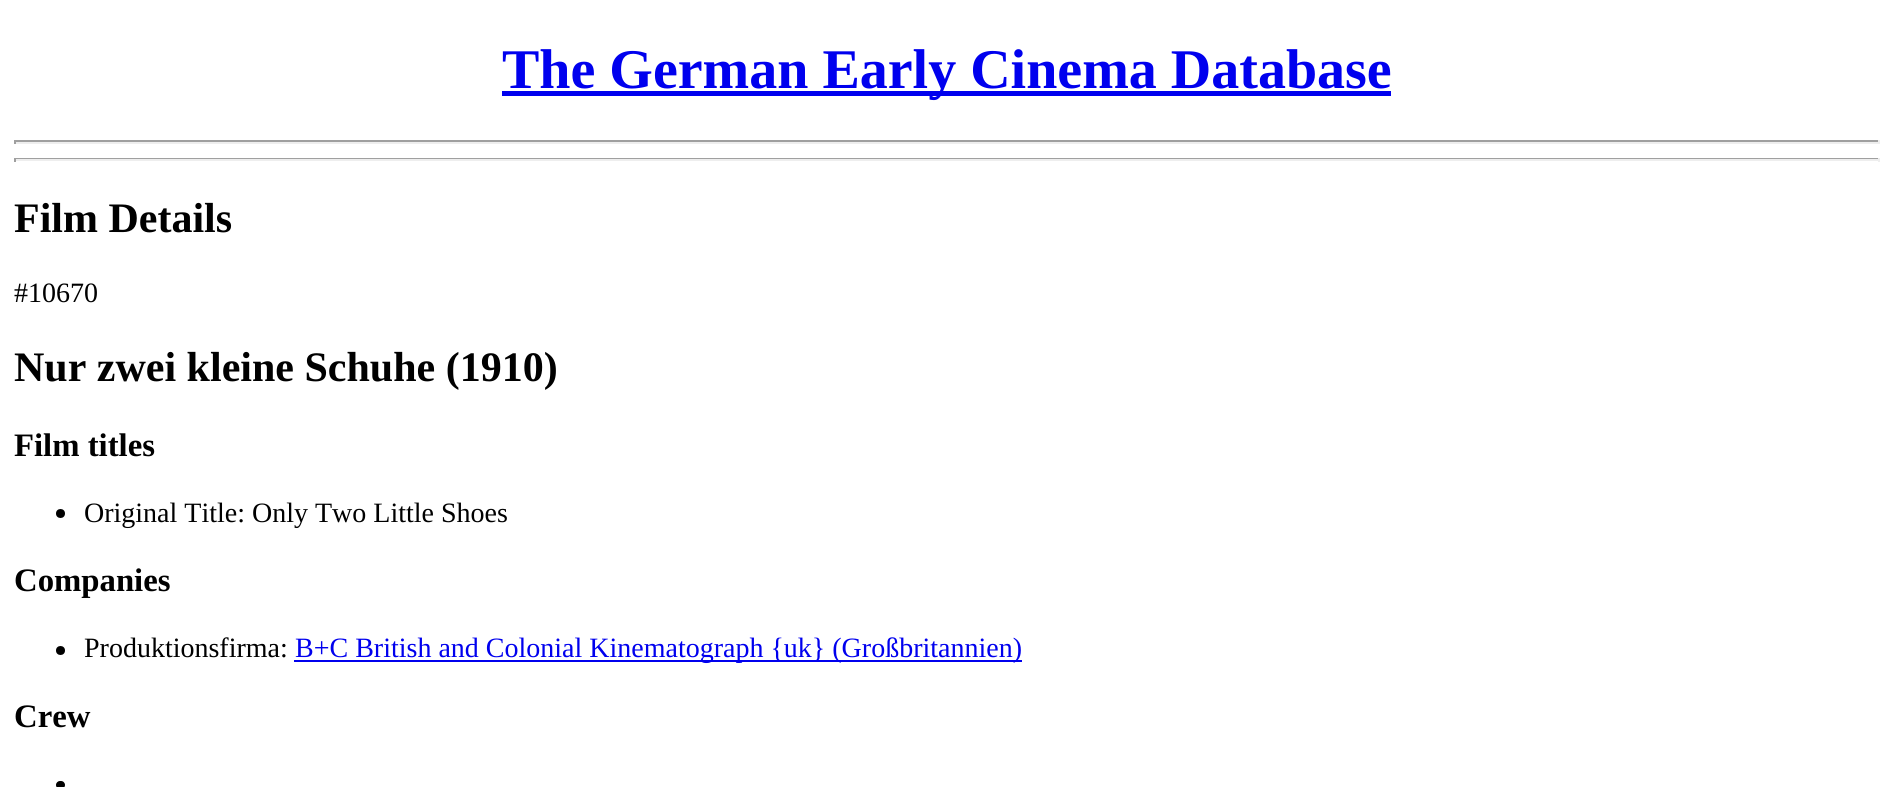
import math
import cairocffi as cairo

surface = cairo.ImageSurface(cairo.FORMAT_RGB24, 1893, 787)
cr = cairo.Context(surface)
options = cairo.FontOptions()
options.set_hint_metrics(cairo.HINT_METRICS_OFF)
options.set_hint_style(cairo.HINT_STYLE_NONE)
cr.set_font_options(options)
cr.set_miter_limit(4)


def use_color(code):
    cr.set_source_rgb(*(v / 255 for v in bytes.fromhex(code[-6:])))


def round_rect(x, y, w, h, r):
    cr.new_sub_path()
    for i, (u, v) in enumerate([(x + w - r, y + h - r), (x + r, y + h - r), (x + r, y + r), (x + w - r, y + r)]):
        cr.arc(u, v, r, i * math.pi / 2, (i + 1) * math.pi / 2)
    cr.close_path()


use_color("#ffffff")
cr.paint()
use_color("#0000ee")
cr.rectangle(502, 91, 889, 5)
cr.fill()
cr.select_font_face("Liberation Serif", cairo.FONT_SLANT_NORMAL, cairo.FONT_WEIGHT_BOLD)
cr.set_font_size(56)
cr.move_to(502, 88)
cr.show_text("The German Early Cinema Database")
use_color("#9f9f9f")
cr.rectangle(14, 140, 1866, 2)
cr.fill()
use_color("#eeeeee")
cr.rectangle(1878, 140, 2, 4)
cr.fill()
cr.rectangle(14, 142, 1866, 2)
cr.fill()
use_color("#9f9f9f")
cr.rectangle(14, 140, 2, 4)
cr.fill()
cr.rectangle(14, 158, 1866, 1)
cr.fill()
use_color("#eeeeee")
cr.rectangle(1878, 158, 2, 4)
cr.fill()
cr.rectangle(14, 159, 1866, 2)
cr.fill()
use_color("#9f9f9f")
cr.rectangle(14, 158, 2, 4)
cr.fill()
cr.set_font_size(42)
use_color("#000000")
cr.move_to(14, 232)
cr.show_text("Film Details")
cr.select_font_face("Liberation Serif")
cr.set_font_size(28)
cr.move_to(14, 302)
cr.show_text("#10670")
cr.select_font_face("Liberation Serif", cairo.FONT_SLANT_NORMAL, cairo.FONT_WEIGHT_BOLD)
cr.set_font_size(42)
cr.move_to(14, 381)
cr.show_text("Nur zwei kleine Schuhe (1910)")
cr.set_font_size(32.75)
cr.move_to(14, 456)
cr.show_text("Film titles")
cr.new_path()
cr.arc(60.5, 513.5, 4.5, 0, 2 * math.pi)
cr.fill()
cr.select_font_face("Liberation Serif")
cr.set_font_size(28)
cr.move_to(84, 522)
cr.show_text("Original Title: Only Two Little Shoes")
cr.select_font_face("Liberation Serif", cairo.FONT_SLANT_NORMAL, cairo.FONT_WEIGHT_BOLD)
cr.set_font_size(32.75)
cr.move_to(14, 591)
cr.show_text("Companies")
cr.new_path()
cr.arc(60.5, 650.5, 4.5, 0, 2 * math.pi)
cr.fill()
cr.select_font_face("Liberation Serif")
cr.set_font_size(28)
cr.move_to(84, 657)
cr.show_text("Produktionsfirma:")
use_color("#0000ee")
cr.rectangle(294, 660, 728, 2)
cr.fill()
cr.move_to(295, 657)
cr.show_text("B+C British and Colonial Kinematograph {uk} (Großbritannien)")
cr.select_font_face("Liberation Serif", cairo.FONT_SLANT_NORMAL, cairo.FONT_WEIGHT_BOLD)
cr.set_font_size(32.75)
use_color("#000000")
cr.move_to(14, 727)
cr.show_text("Crew")
round_rect(56, 781, 9, 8, 4)
cr.fill()
surface.write_to_png("result.png")
